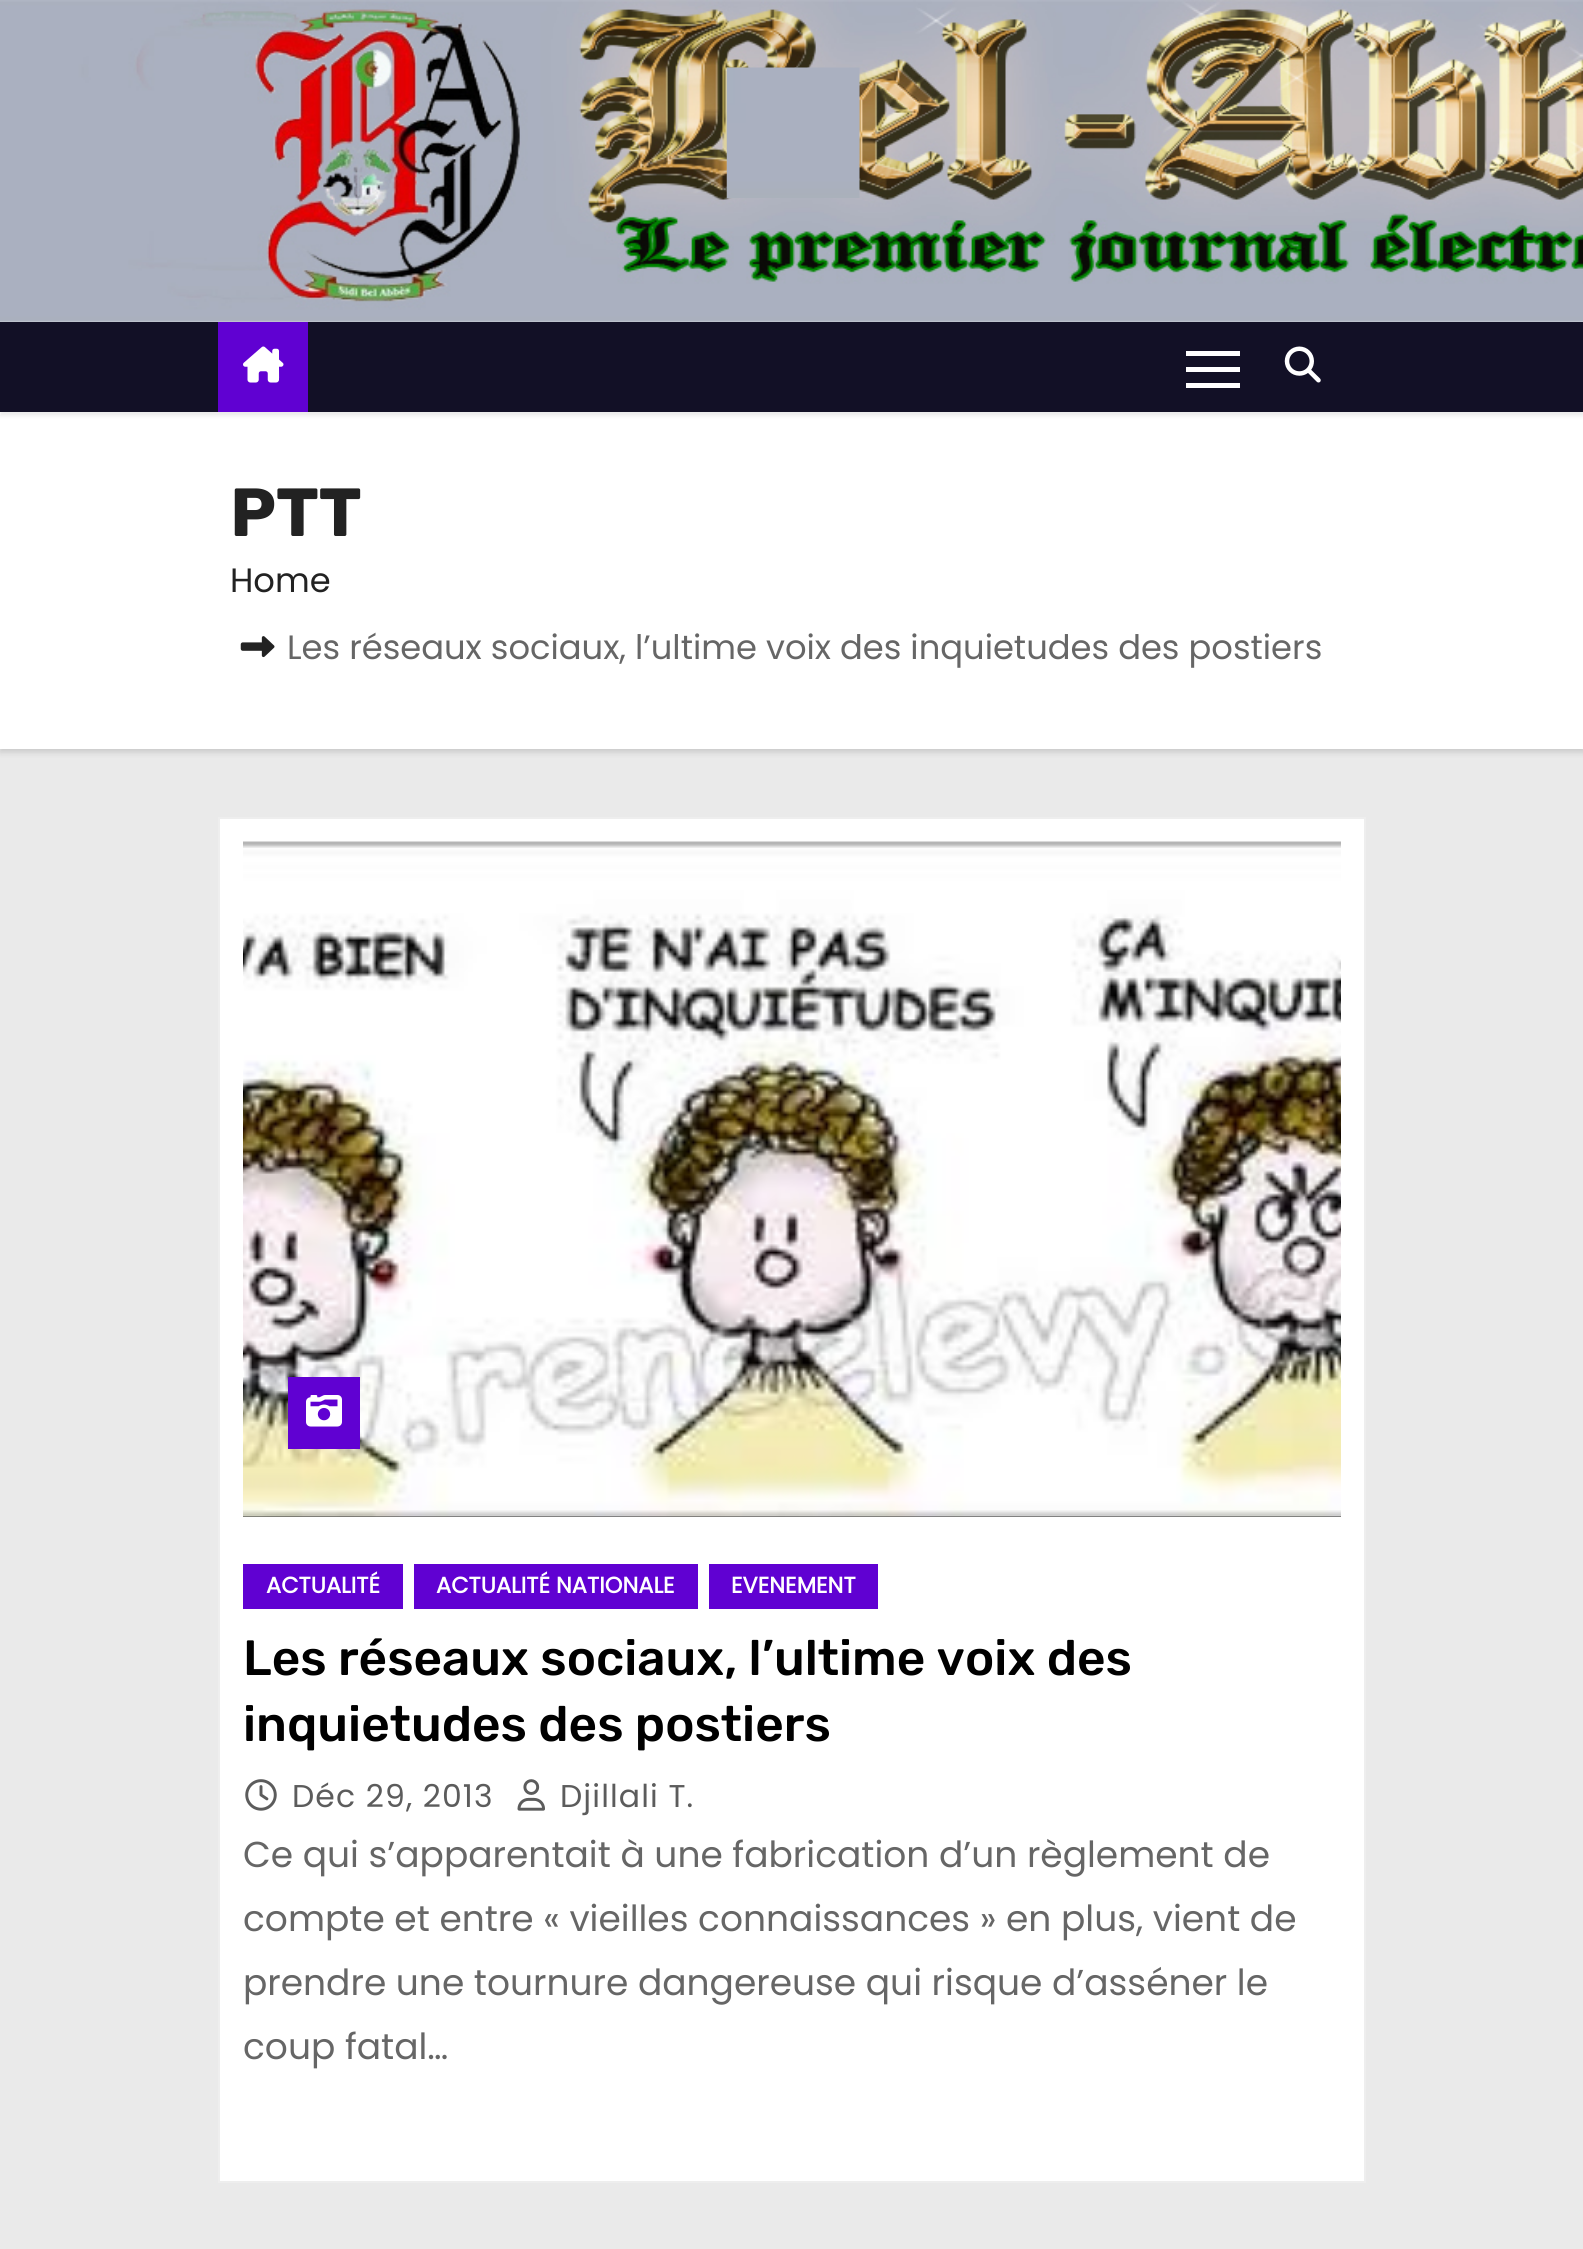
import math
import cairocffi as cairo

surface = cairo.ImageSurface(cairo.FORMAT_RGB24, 1583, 2249)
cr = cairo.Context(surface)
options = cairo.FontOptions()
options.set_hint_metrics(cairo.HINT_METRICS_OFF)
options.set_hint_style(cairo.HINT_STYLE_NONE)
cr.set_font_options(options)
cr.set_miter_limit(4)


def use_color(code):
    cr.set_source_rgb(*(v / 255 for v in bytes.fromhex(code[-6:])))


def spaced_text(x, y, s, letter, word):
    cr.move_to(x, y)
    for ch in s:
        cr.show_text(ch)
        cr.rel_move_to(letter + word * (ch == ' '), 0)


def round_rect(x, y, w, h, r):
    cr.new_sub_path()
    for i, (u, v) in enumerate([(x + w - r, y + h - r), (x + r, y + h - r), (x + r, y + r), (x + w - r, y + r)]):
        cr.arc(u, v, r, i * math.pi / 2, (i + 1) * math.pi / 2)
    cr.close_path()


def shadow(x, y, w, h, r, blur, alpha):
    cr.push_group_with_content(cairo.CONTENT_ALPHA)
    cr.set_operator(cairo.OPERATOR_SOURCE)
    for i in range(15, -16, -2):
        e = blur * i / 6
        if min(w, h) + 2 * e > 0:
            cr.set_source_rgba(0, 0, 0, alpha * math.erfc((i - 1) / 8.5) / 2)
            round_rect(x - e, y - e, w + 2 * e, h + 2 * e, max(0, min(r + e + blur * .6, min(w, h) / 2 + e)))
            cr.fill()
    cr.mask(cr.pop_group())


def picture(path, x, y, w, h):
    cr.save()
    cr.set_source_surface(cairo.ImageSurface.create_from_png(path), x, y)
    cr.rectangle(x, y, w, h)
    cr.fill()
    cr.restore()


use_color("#eaeaea")
cr.paint()
picture("img1.png", 0, 0, 1583, 322)
picture("img2.png", 726, 67, 134, 131)
use_color("#000000")
shadow(0, 414, 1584, 338, 0, 3.5, 0.15)
use_color("#ffffff")
cr.rectangle(0, 412, 1583, 337)
cr.fill()
use_color("#000000")
shadow(0, 326, 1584, 90, 0, 2, 0.08)
use_color("#121026")
cr.rectangle(0, 322, 1583, 90)
cr.fill()
use_color("#6001d2")
cr.rectangle(218, 322, 90, 90)
cr.fill()
picture("img3.png", 243, 346, 41, 37)
use_color("#ffffff")
cr.rectangle(1186, 351, 54, 5)
cr.fill()
cr.rectangle(1186, 367, 54, 5)
cr.fill()
cr.rectangle(1186, 383, 54, 5)
cr.fill()
picture("img4.png", 1284, 346, 37, 37)
cr.select_font_face("Rubik", cairo.FONT_SLANT_NORMAL, cairo.FONT_WEIGHT_BOLD)
cr.set_font_size(68)
use_color("#222222")
cr.move_to(230, 536)
cr.show_text("PTT")
cr.select_font_face("Poppins")
cr.set_font_size(33.75)
cr.move_to(230, 592)
cr.show_text("Home")
picture("img5.png", 240, 636, 35, 22)
use_color("#666666")
cr.move_to(287, 659)
cr.show_text("Les réseaux sociaux, l’ultime voix des inquietudes des postiers")
use_color("#ffffff")
cr.rectangle(219, 818, 1146, 1364)
cr.fill_preserve()
use_color("#eeeeee")
cr.stroke()
use_color("#333333")
cr.rectangle(243, 1516, 1098, 1)
cr.fill()
picture("img6.png", 243, 841, 1098, 676)
use_color("#6001d2")
cr.rectangle(288, 1377, 72, 72)
cr.fill()
picture("img7.png", 306, 1395, 36, 32)
cr.rectangle(243, 1564, 160, 45)
cr.fill()
cr.select_font_face("Poppins", cairo.FONT_SLANT_NORMAL, cairo.FONT_WEIGHT_BOLD)
cr.set_font_size(22.5)
use_color("#ffffff")
cr.move_to(266, 1593)
cr.show_text("ACTUALITÉ")
use_color("#6001d2")
cr.rectangle(414, 1564, 284, 45)
cr.fill()
use_color("#ffffff")
cr.move_to(436, 1593)
cr.show_text("ACTUALITÉ NATIONALE")
use_color("#6001d2")
cr.rectangle(709, 1564, 169, 45)
cr.fill()
use_color("#ffffff")
cr.move_to(731, 1593)
cr.show_text("EVENEMENT")
cr.select_font_face("Rubik Medium")
cr.set_font_size(49.5)
use_color("#000000")
cr.move_to(243, 1675)
cr.show_text("Les réseaux sociaux, l’ultime voix des")
cr.move_to(243, 1741)
cr.show_text("inquietudes des postiers")
picture("img8.png", 245, 1779, 32, 32)
cr.select_font_face("Poppins")
cr.set_font_size(31.5)
use_color("#5c5c5c")
spaced_text(292, 1807, "Déc 29, 2013", 1.1, 0)
picture("img9.png", 517, 1779, 28, 32)
spaced_text(560, 1807, "Djillali T.", 1.1, 0)
cr.set_font_size(36)
use_color("#666666")
cr.move_to(243, 1867)
cr.show_text("Ce qui s’apparentait à une fabrication d’un règlement de")
cr.move_to(243, 1931)
cr.show_text("compte et entre « vieilles connaissances » en plus, vient de")
cr.move_to(243, 1995)
cr.show_text("prendre une tournure dangereuse qui risque d’asséner le")
cr.move_to(243, 2059)
cr.show_text("coup fatal…")
surface.write_to_png("result.png")
